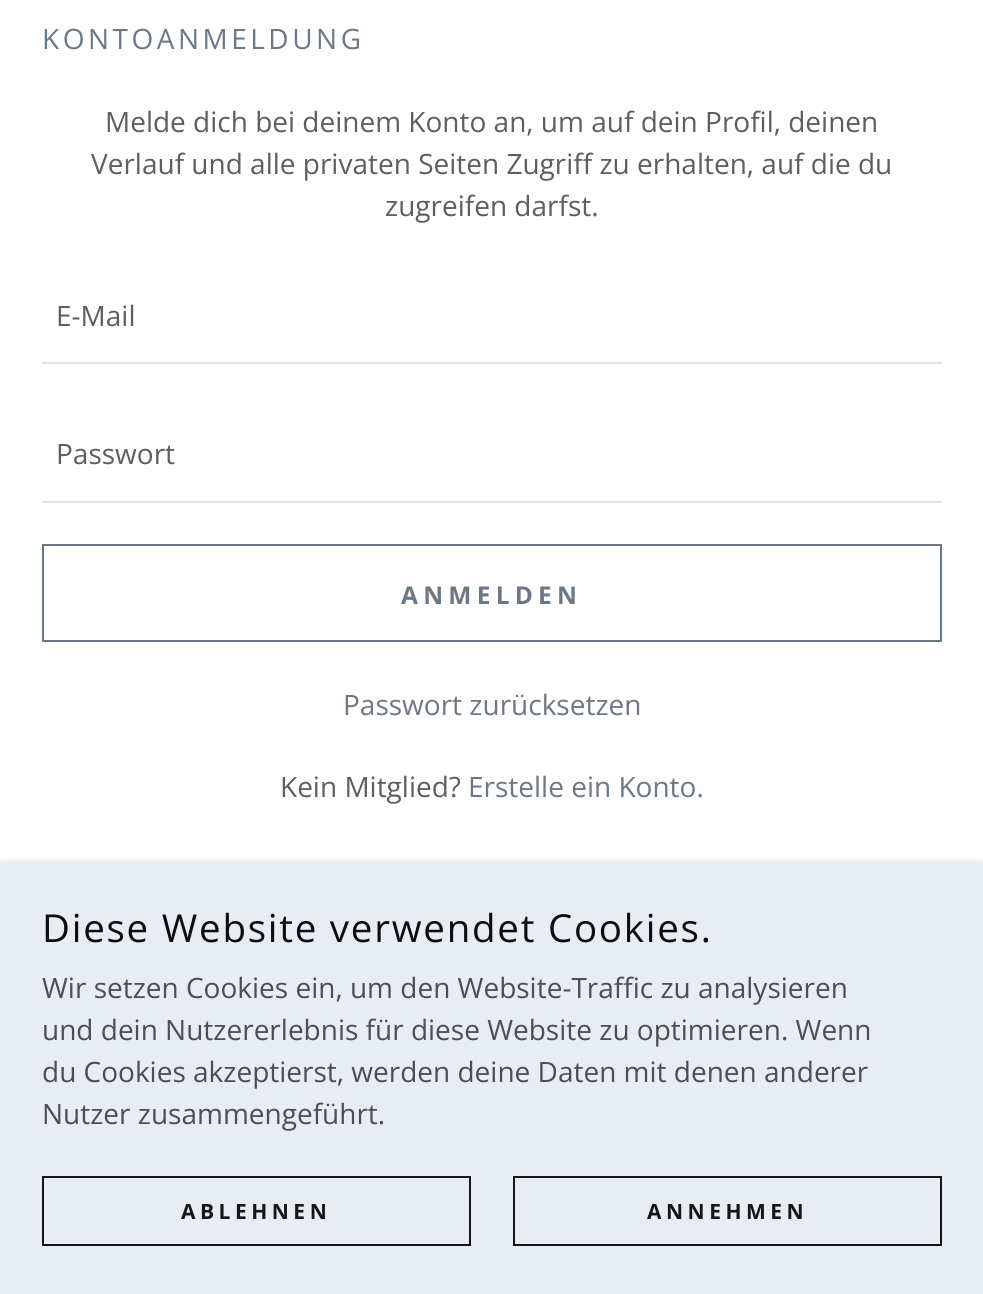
import math
import cairocffi as cairo

surface = cairo.ImageSurface(cairo.FORMAT_RGB24, 983, 1294)
cr = cairo.Context(surface)
options = cairo.FontOptions()
options.set_hint_metrics(cairo.HINT_METRICS_OFF)
options.set_hint_style(cairo.HINT_STYLE_NONE)
cr.set_font_options(options)
cr.set_miter_limit(4)


def use_color(code):
    cr.set_source_rgb(*(v / 255 for v in bytes.fromhex(code[-6:])))


def spaced_text(x, y, s, letter, word):
    cr.move_to(x, y)
    for ch in s:
        cr.show_text(ch)
        cr.rel_move_to(letter + word * (ch == ' '), 0)


def round_rect(x, y, w, h, r):
    cr.new_sub_path()
    for i, (u, v) in enumerate([(x + w - r, y + h - r), (x + r, y + h - r), (x + r, y + r), (x + w - r, y + r)]):
        cr.arc(u, v, r, i * math.pi / 2, (i + 1) * math.pi / 2)
    cr.close_path()


def shadow(x, y, w, h, r, blur, alpha):
    cr.push_group_with_content(cairo.CONTENT_ALPHA)
    cr.set_operator(cairo.OPERATOR_SOURCE)
    for i in range(15, -16, -2):
        e = blur * i / 6
        if min(w, h) + 2 * e > 0:
            cr.set_source_rgba(0, 0, 0, alpha * math.erfc((i - 1) / 8.5) / 2)
            round_rect(x - e, y - e, w + 2 * e, h + 2 * e, max(0, min(r + e + blur * .6, min(w, h) / 2 + e)))
            cr.fill()
    cr.mask(cr.pop_group())


use_color("#ffffff")
cr.paint()
cr.select_font_face("Open Sans")
cr.set_font_size(28)
use_color("#6b7887")
spaced_text(42, 49, "KONTOANMELDUNG", 3.5, 0)
use_color("#5e5e5e")
cr.move_to(105, 132)
cr.show_text("Melde dich bei deinem Konto an, um auf dein Profil, deinen")
cr.move_to(91, 174)
cr.show_text("Verlauf und alle privaten Seiten Zugriff zu erhalten, auf die du")
cr.move_to(385, 216)
cr.show_text("zugreifen darfst.")
use_color("#e2e2e2")
cr.rectangle(42, 362, 900, 2)
cr.fill()
use_color("#5e5e5e")
cr.move_to(56, 326)
cr.show_text("E-Mail")
use_color("#e2e2e2")
cr.rectangle(42, 501, 900, 2)
cr.fill()
use_color("#5e5e5e")
cr.move_to(56, 464)
cr.show_text("Passwort")
cr.rectangle(43, 545, 898, 96)
use_color("#6b7887")
cr.stroke()
cr.select_font_face("Open Sans", cairo.FONT_SLANT_NORMAL, cairo.FONT_WEIGHT_BOLD)
cr.set_font_size(24.5)
spaced_text(401, 604, "ANMELDEN", 5.25, 0)
cr.select_font_face("Open Sans")
cr.set_font_size(28)
cr.move_to(343, 715)
cr.show_text("Passwort zurücksetzen")
use_color("#5e5e5e")
cr.move_to(280, 797)
cr.show_text("Kein Mitglied?")
use_color("#6b7887")
cr.move_to(468, 797)
cr.show_text("Erstelle ein Konto.")
use_color("#000000")
shadow(0, 866, 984, 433, 0, 5, 0.3)
use_color("#e8edf3")
cr.rectangle(0, 863, 983, 431)
cr.fill()
cr.set_font_size(38.5)
use_color("#0d0d0d")
spaced_text(42, 942, "Diese Website verwendet Cookies.", 1.75, 0)
cr.set_font_size(28)
use_color("#4b4f55")
cr.move_to(42, 998)
cr.show_text("Wir setzen Cookies ein, um den Website-Traffic zu analysieren")
cr.move_to(42, 1040)
cr.show_text("und dein Nutzererlebnis für diese Website zu optimieren. Wenn")
cr.move_to(42, 1082)
cr.show_text("du Cookies akzeptierst, werden deine Daten mit denen anderer")
cr.move_to(42, 1124)
cr.show_text("Nutzer zusammengeführt.")
cr.rectangle(43, 1177, 427, 68)
use_color("#161616")
cr.stroke()
cr.select_font_face("Open Sans", cairo.FONT_SLANT_NORMAL, cairo.FONT_WEIGHT_BOLD)
cr.set_font_size(21)
spaced_text(181, 1219, "ABLEHNEN", 4.5, 0)
cr.rectangle(514, 1177, 427, 68)
cr.stroke()
spaced_text(647, 1219, "ANNEHMEN", 4.5, 0)
surface.write_to_png("result.png")
